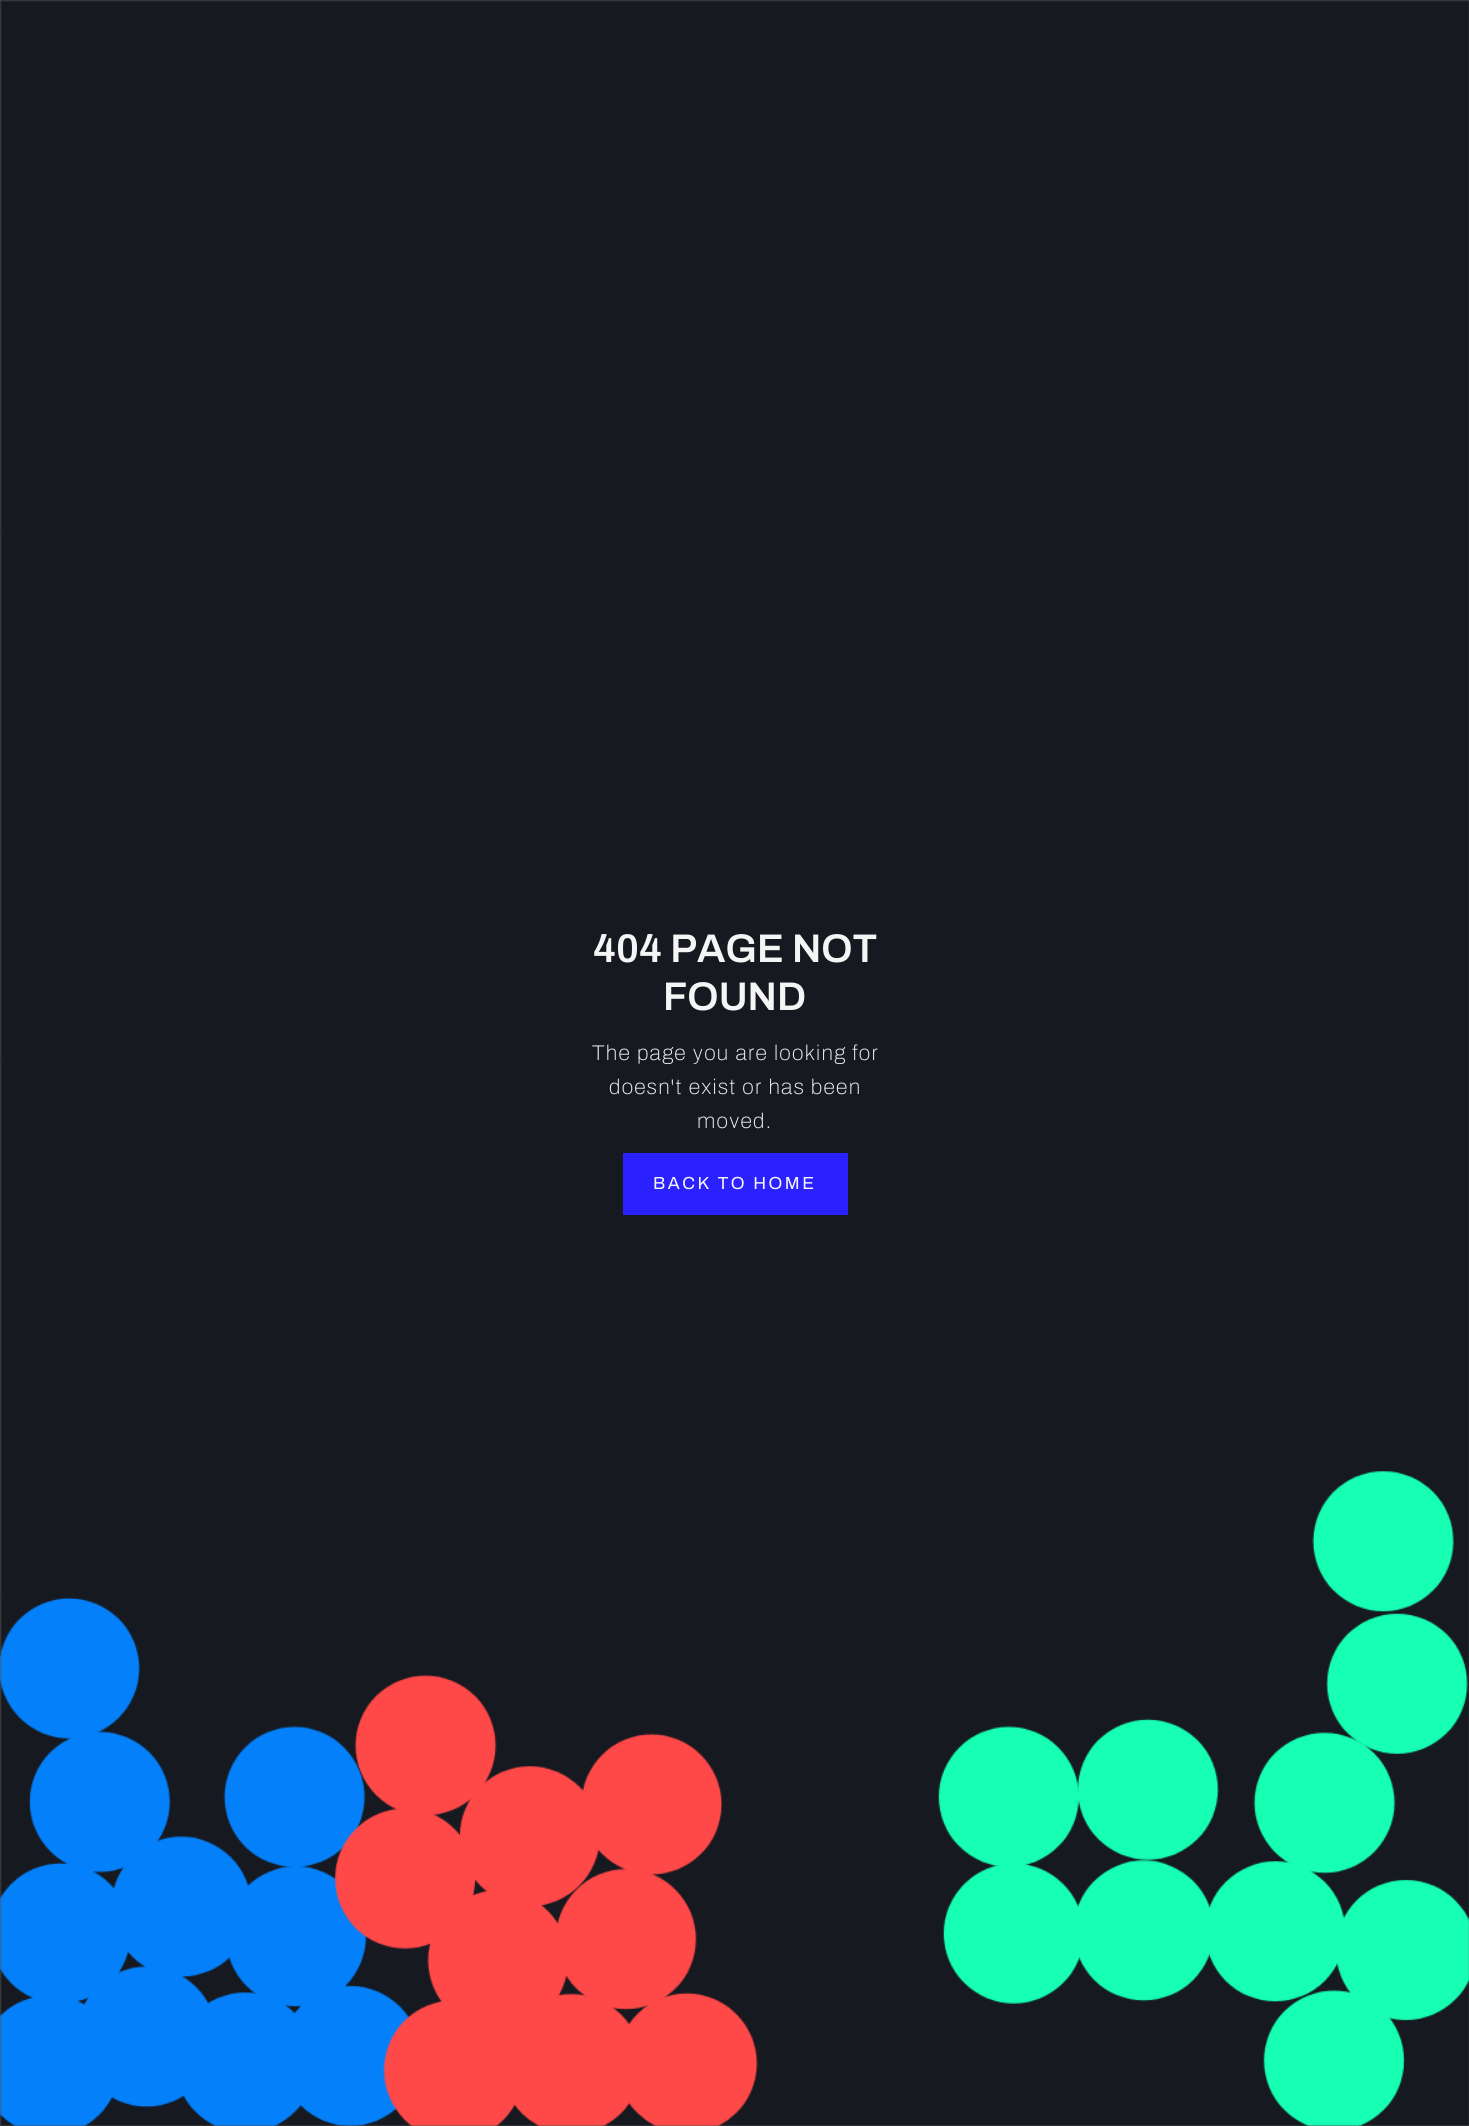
import math
import cairocffi as cairo

surface = cairo.ImageSurface(cairo.FORMAT_RGB24, 1469, 2126)
cr = cairo.Context(surface)
options = cairo.FontOptions()
options.set_hint_metrics(cairo.HINT_METRICS_OFF)
options.set_hint_style(cairo.HINT_STYLE_NONE)
cr.set_font_options(options)
cr.set_miter_limit(4)


def use_color(code):
    cr.set_source_rgb(*(v / 255 for v in bytes.fromhex(code[-6:])))


def spaced_text(x, y, s, letter, word):
    cr.move_to(x, y)
    for ch in s:
        cr.show_text(ch)
        cr.rel_move_to(letter + word * (ch == ' '), 0)


def picture(path, x, y, w, h):
    cr.save()
    cr.set_source_surface(cairo.ImageSurface.create_from_png(path), x, y)
    cr.rectangle(x, y, w, h)
    cr.fill()
    cr.restore()


use_color("#161a20")
cr.paint()
cr.select_font_face("Archivo SemiBold")
cr.set_font_size(40)
use_color("#f5f5f5")
cr.move_to(593, 962)
cr.show_text("404 PAGE NOT")
cr.move_to(663, 1010)
cr.show_text("FOUND")
cr.select_font_face("Archivo Thin")
cr.set_font_size(21.25)
use_color("#eeeeee")
spaced_text(592, 1060, "The page you are looking for", 1.25, 0)
spaced_text(609, 1094, "doesn't exist or has been", 1.25, 0)
spaced_text(697, 1128, "moved.", 1.25, 0)
picture("img1.png", 0, 0, 1469, 2126)
use_color("#2b20ff")
cr.rectangle(623, 1153, 225, 62)
cr.fill()
cr.select_font_face("Archivo")
cr.set_font_size(17.5)
use_color("#f5f5f5")
spaced_text(653, 1189, "BACK TO HOME", 2.5, 0)
surface.write_to_png("result.png")
